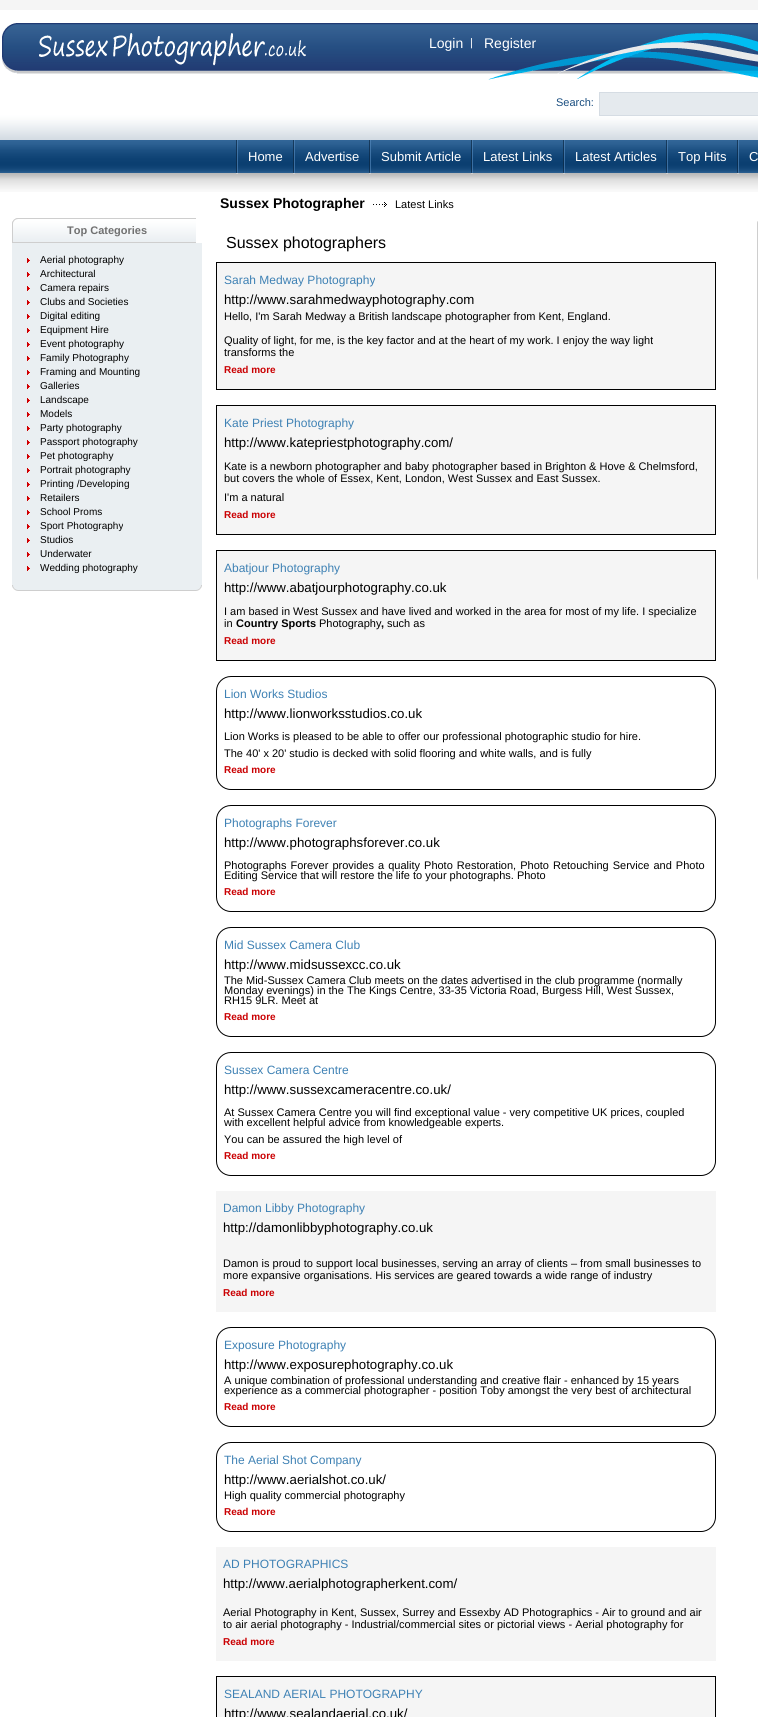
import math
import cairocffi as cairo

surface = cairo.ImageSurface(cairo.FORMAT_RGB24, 758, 1717)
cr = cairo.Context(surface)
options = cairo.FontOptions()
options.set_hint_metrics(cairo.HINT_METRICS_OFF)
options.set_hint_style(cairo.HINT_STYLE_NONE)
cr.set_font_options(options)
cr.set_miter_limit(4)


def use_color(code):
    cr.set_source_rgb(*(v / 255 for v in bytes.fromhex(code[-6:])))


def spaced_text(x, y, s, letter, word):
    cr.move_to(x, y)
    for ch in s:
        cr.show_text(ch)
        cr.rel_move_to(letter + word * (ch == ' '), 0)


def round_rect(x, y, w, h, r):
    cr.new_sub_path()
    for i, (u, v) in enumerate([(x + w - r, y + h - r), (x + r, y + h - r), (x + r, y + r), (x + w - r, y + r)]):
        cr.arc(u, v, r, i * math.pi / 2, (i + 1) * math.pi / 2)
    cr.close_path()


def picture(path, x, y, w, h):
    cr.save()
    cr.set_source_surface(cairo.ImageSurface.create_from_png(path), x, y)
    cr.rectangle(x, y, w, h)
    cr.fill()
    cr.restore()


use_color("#ffffff")
cr.paint()
picture("img1.png", 2, 23, 756, 57)
use_color("#f5f5f5")
cr.rectangle(0, 0, 758, 10)
cr.fill()
cr.select_font_face("Liberation Sans")
cr.set_font_size(14)
use_color("#ffffff")
cr.move_to(429, 48)
cr.show_text("Login")
cr.set_font_size(11)
cr.move_to(470, 46)
cr.show_text("|")
cr.set_font_size(14)
cr.move_to(484, 48)
cr.show_text("Register")
picture("img2.png", 0, 85, 758, 55)
cr.set_font_size(11)
use_color("#1a4e80")
cr.move_to(556, 106)
cr.show_text("Search:")
use_color("#e5eaee")
cr.rectangle(599.5, 92.5, 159, 23)
cr.fill_preserve()
use_color("#d5dce3")
cr.set_line_width(1)
cr.stroke()
picture("img3.png", 0, 140, 758, 33)
picture("img5.png", 0, 173, 758, 19)
picture("img4.png", 236, 140, 2, 34)
cr.set_font_size(13)
use_color("#ffffff")
cr.move_to(248, 161)
cr.show_text("Home")
picture("img4.png", 293, 140, 2, 34)
cr.move_to(305, 161)
cr.show_text("Advertise")
picture("img4.png", 369, 140, 2, 34)
cr.move_to(381, 161)
cr.show_text("Submit Article")
picture("img4.png", 471, 140, 2, 34)
cr.move_to(483, 161)
cr.show_text("Latest Links")
picture("img4.png", 563, 140, 2, 34)
cr.move_to(575, 161)
cr.show_text("Latest Articles")
picture("img4.png", 666, 140, 2, 34)
cr.move_to(678, 161)
cr.show_text("Top Hits")
picture("img4.png", 737, 140, 2, 34)
cr.move_to(749, 161)
cr.show_text("C")
cr.select_font_face("Liberation Sans", cairo.FONT_SLANT_NORMAL, cairo.FONT_WEIGHT_BOLD)
cr.set_font_size(14)
use_color("#000000")
cr.move_to(220, 208)
cr.show_text("Sussex Photographer")
picture("img6.png", 373, 202, 14, 5)
cr.select_font_face("Liberation Sans")
cr.set_font_size(11)
cr.move_to(395, 208)
cr.show_text("Latest Links")
picture("img7.png", 12, 218, 6, 25)
picture("img8.png", 18, 218, 178, 25)
cr.select_font_face("Liberation Sans", cairo.FONT_SLANT_NORMAL, cairo.FONT_WEIGHT_BOLD)
use_color("#707070")
cr.move_to(67, 234)
cr.show_text("Top Categories")
use_color("#eaeff2")
cr.rectangle(12, 243, 190, 342)
cr.fill()
picture("img9.png", 27, 258, 3, 6)
cr.select_font_face("Liberation Sans")
cr.set_font_size(10)
use_color("#000000")
cr.move_to(40, 263)
cr.show_text("Aerial photography")
picture("img9.png", 27, 272, 3, 6)
cr.move_to(40, 277)
cr.show_text("Architectural")
picture("img9.png", 27, 286, 3, 6)
cr.move_to(40, 291)
cr.show_text("Camera repairs")
picture("img9.png", 27, 300, 3, 6)
cr.move_to(40, 305)
cr.show_text("Clubs and Societies")
picture("img9.png", 27, 314, 3, 6)
cr.move_to(40, 319)
cr.show_text("Digital editing")
picture("img9.png", 27, 328, 3, 6)
cr.move_to(40, 333)
cr.show_text("Equipment Hire")
picture("img9.png", 27, 342, 3, 6)
cr.move_to(40, 347)
cr.show_text("Event photography")
picture("img9.png", 27, 356, 3, 6)
cr.move_to(40, 361)
cr.show_text("Family Photography")
picture("img9.png", 27, 370, 3, 6)
cr.move_to(40, 375)
cr.show_text("Framing and Mounting")
picture("img9.png", 27, 384, 3, 6)
cr.move_to(40, 389)
cr.show_text("Galleries")
picture("img9.png", 27, 398, 3, 6)
cr.move_to(40, 403)
cr.show_text("Landscape")
picture("img9.png", 27, 412, 3, 6)
cr.move_to(40, 417)
cr.show_text("Models")
picture("img9.png", 27, 426, 3, 6)
cr.move_to(40, 431)
cr.show_text("Party photography")
picture("img9.png", 27, 440, 3, 6)
cr.move_to(40, 445)
cr.show_text("Passport photography")
picture("img9.png", 27, 454, 3, 6)
cr.move_to(40, 459)
cr.show_text("Pet photography")
picture("img9.png", 27, 468, 3, 6)
cr.move_to(40, 473)
cr.show_text("Portrait photography")
picture("img9.png", 27, 482, 3, 6)
cr.move_to(40, 487)
cr.show_text("Printing /Developing")
picture("img9.png", 27, 496, 3, 6)
cr.move_to(40, 501)
cr.show_text("Retailers")
picture("img9.png", 27, 510, 3, 6)
cr.move_to(40, 515)
cr.show_text("School Proms")
picture("img9.png", 27, 524, 3, 6)
cr.move_to(40, 529)
cr.show_text("Sport Photography")
picture("img9.png", 27, 538, 3, 6)
cr.move_to(40, 543)
cr.show_text("Studios")
picture("img9.png", 27, 552, 3, 6)
cr.move_to(40, 557)
cr.show_text("Underwater")
picture("img9.png", 27, 566, 3, 6)
cr.move_to(40, 571)
cr.show_text("Wedding photography")
picture("img10.png", 12, 585, 190, 6)
cr.set_font_size(16)
cr.move_to(226, 248)
cr.show_text("Sussex photographers")
cr.rectangle(216.5, 262.5, 499, 127)
cr.stroke()
use_color("#f5f5f5")
cr.rectangle(217, 263, 498, 126)
cr.fill()
cr.set_font_size(12)
use_color("#3e81b4")
cr.move_to(224, 284)
cr.show_text("Sarah Medway Photography")
cr.set_font_size(13.25)
use_color("#000000")
cr.move_to(224, 304)
cr.show_text("http://www.sarahmedwayphotography.com")
cr.set_font_size(11)
cr.move_to(224, 320)
cr.show_text("Hello, I'm Sarah Medway a British landscape photographer from Kent, England.")
cr.move_to(224, 344)
cr.show_text("Quality of light, for me, is the key factor and at the heart of my work. I enjoy the way light")
cr.move_to(224, 356)
cr.show_text("transforms the")
cr.select_font_face("Liberation Sans", cairo.FONT_SLANT_NORMAL, cairo.FONT_WEIGHT_BOLD)
cr.set_font_size(10)
use_color("#ca0002")
cr.move_to(224, 373)
cr.show_text("Read more")
cr.rectangle(216.5, 405.5, 499, 129)
use_color("#000000")
cr.stroke()
use_color("#f5f5f5")
cr.rectangle(217, 406, 498, 128)
cr.fill()
cr.select_font_face("Liberation Sans")
cr.set_font_size(12)
use_color("#3e81b4")
cr.move_to(224, 427)
cr.show_text("Kate Priest Photography")
cr.set_font_size(13.25)
use_color("#000000")
cr.move_to(224, 447)
cr.show_text("http://www.katepriestphotography.com/")
cr.set_font_size(11)
cr.move_to(224, 470)
cr.show_text("Kate is a newborn photographer and baby photographer based in Brighton & Hove & Chelmsford,")
cr.move_to(224, 482)
cr.show_text("but covers the whole of Essex, Kent, London, West Sussex and East Sussex.")
cr.move_to(224, 501)
cr.show_text("I'm a natural")
cr.select_font_face("Liberation Sans", cairo.FONT_SLANT_NORMAL, cairo.FONT_WEIGHT_BOLD)
cr.set_font_size(10)
use_color("#ca0002")
cr.move_to(224, 518)
cr.show_text("Read more")
cr.rectangle(216.5, 550.5, 499, 110)
use_color("#000000")
cr.stroke()
use_color("#f5f5f5")
cr.rectangle(217, 551, 498, 109)
cr.fill()
cr.select_font_face("Liberation Sans")
cr.set_font_size(12)
use_color("#3e81b4")
cr.move_to(224, 572)
cr.show_text("Abatjour Photography")
cr.set_font_size(13.25)
use_color("#000000")
cr.move_to(224, 592)
cr.show_text("http://www.abatjourphotography.co.uk")
cr.set_font_size(11)
cr.move_to(224, 615)
cr.show_text("I am based in West Sussex and have lived and worked in the area for most of my life. I specialize")
cr.move_to(224, 627)
cr.show_text("in")
cr.select_font_face("Liberation Sans", cairo.FONT_SLANT_NORMAL, cairo.FONT_WEIGHT_BOLD)
cr.move_to(236, 627)
cr.show_text("Country Sports")
cr.select_font_face("Liberation Sans")
cr.move_to(319, 627)
cr.show_text("Photography")
cr.select_font_face("Liberation Sans", cairo.FONT_SLANT_NORMAL, cairo.FONT_WEIGHT_BOLD)
cr.move_to(381, 627)
cr.show_text(",")
cr.select_font_face("Liberation Sans")
cr.move_to(387, 627)
cr.show_text("such as")
cr.select_font_face("Liberation Sans", cairo.FONT_SLANT_NORMAL, cairo.FONT_WEIGHT_BOLD)
cr.set_font_size(10)
use_color("#ca0002")
cr.move_to(224, 644)
cr.show_text("Read more")
round_rect(216.5, 676.5, 499, 113, 14.5)
use_color("#000000")
cr.stroke()
cr.select_font_face("Liberation Sans")
cr.set_font_size(12)
use_color("#3e81b4")
cr.move_to(224, 698)
cr.show_text("Lion Works Studios")
cr.set_font_size(13.25)
use_color("#000000")
cr.move_to(224, 718)
cr.show_text("http://www.lionworksstudios.co.uk")
cr.set_font_size(11)
cr.move_to(224, 740)
cr.show_text("Lion Works is pleased to be able to offer our professional photographic studio for hire.")
cr.move_to(224, 757)
cr.show_text("The 40' x 20' studio is decked with solid flooring and white walls, and is fully")
cr.select_font_face("Liberation Sans", cairo.FONT_SLANT_NORMAL, cairo.FONT_WEIGHT_BOLD)
cr.set_font_size(10)
use_color("#ca0002")
cr.move_to(224, 773)
cr.show_text("Read more")
round_rect(216.5, 805.5, 499, 106, 14.5)
use_color("#000000")
cr.stroke()
cr.select_font_face("Liberation Sans")
cr.set_font_size(12)
use_color("#3e81b4")
cr.move_to(224, 827)
cr.show_text("Photographs Forever")
cr.set_font_size(13.25)
use_color("#000000")
cr.move_to(224, 847)
cr.show_text("http://www.photographsforever.co.uk")
cr.set_font_size(11)
spaced_text(224, 869, "Photographs Forever provides a quality Photo Restoration, Photo Retouching Service and Photo", 0, 1)
cr.move_to(224, 879)
cr.show_text("Editing Service that will restore the life to your photographs. Photo")
cr.select_font_face("Liberation Sans", cairo.FONT_SLANT_NORMAL, cairo.FONT_WEIGHT_BOLD)
cr.set_font_size(10)
use_color("#ca0002")
cr.move_to(224, 895)
cr.show_text("Read more")
round_rect(216.5, 927.5, 499, 109, 14.5)
use_color("#000000")
cr.stroke()
cr.select_font_face("Liberation Sans")
cr.set_font_size(12)
use_color("#3e81b4")
cr.move_to(224, 949)
cr.show_text("Mid Sussex Camera Club")
cr.set_font_size(13.25)
use_color("#000000")
cr.move_to(224, 969)
cr.show_text("http://www.midsussexcc.co.uk")
cr.set_font_size(11)
cr.move_to(224, 984)
cr.show_text("The Mid-Sussex Camera Club meets on the dates advertised in the club programme (normally")
cr.move_to(224, 994)
cr.show_text("Monday evenings) in the The Kings Centre, 33-35 Victoria Road, Burgess Hill, West Sussex,")
cr.move_to(224, 1004)
cr.show_text("RH15 9LR. Meet at")
cr.select_font_face("Liberation Sans", cairo.FONT_SLANT_NORMAL, cairo.FONT_WEIGHT_BOLD)
cr.set_font_size(10)
use_color("#ca0002")
cr.move_to(224, 1020)
cr.show_text("Read more")
round_rect(216.5, 1052.5, 499, 123, 14.5)
use_color("#000000")
cr.stroke()
cr.select_font_face("Liberation Sans")
cr.set_font_size(12)
use_color("#3e81b4")
cr.move_to(224, 1074)
cr.show_text("Sussex Camera Centre")
cr.set_font_size(13.25)
use_color("#000000")
cr.move_to(224, 1094)
cr.show_text("http://www.sussexcameracentre.co.uk/")
cr.set_font_size(11)
cr.move_to(224, 1116)
cr.show_text("At Sussex Camera Centre you will find exceptional value - very competitive UK prices, coupled")
cr.move_to(224, 1126)
cr.show_text("with excellent helpful advice from knowledgeable experts.")
cr.move_to(224, 1143)
cr.show_text("You can be assured the high level of")
cr.select_font_face("Liberation Sans", cairo.FONT_SLANT_NORMAL, cairo.FONT_WEIGHT_BOLD)
cr.set_font_size(10)
use_color("#ca0002")
cr.move_to(224, 1159)
cr.show_text("Read more")
use_color("#f5f5f5")
cr.rectangle(216, 1191, 500, 121)
cr.fill()
cr.select_font_face("Liberation Sans")
cr.set_font_size(12)
use_color("#3e81b4")
cr.move_to(223, 1212)
cr.show_text("Damon Libby Photography")
cr.set_font_size(13.25)
use_color("#000000")
cr.move_to(223, 1232)
cr.show_text("http://damonlibbyphotography.co.uk")
cr.set_font_size(11)
cr.move_to(223, 1267)
cr.show_text("Damon is proud to support local businesses, serving an array of clients – from small businesses to")
cr.move_to(223, 1279)
cr.show_text("more expansive organisations. His services are geared towards a wide range of industry")
cr.select_font_face("Liberation Sans", cairo.FONT_SLANT_NORMAL, cairo.FONT_WEIGHT_BOLD)
cr.set_font_size(10)
use_color("#ca0002")
cr.move_to(223, 1296)
cr.show_text("Read more")
round_rect(216.5, 1327.5, 499, 99, 14.5)
use_color("#000000")
cr.stroke()
cr.select_font_face("Liberation Sans")
cr.set_font_size(12)
use_color("#3e81b4")
cr.move_to(224, 1349)
cr.show_text("Exposure Photography")
cr.set_font_size(13.25)
use_color("#000000")
cr.move_to(224, 1369)
cr.show_text("http://www.exposurephotography.co.uk")
cr.set_font_size(11)
cr.move_to(224, 1384)
cr.show_text("A unique combination of professional understanding and creative flair - enhanced by 15 years")
cr.move_to(224, 1394)
cr.show_text("experience as a commercial photographer - position Toby amongst the very best of architectural")
cr.select_font_face("Liberation Sans", cairo.FONT_SLANT_NORMAL, cairo.FONT_WEIGHT_BOLD)
cr.set_font_size(10)
use_color("#ca0002")
cr.move_to(224, 1410)
cr.show_text("Read more")
round_rect(216.5, 1442.5, 499, 89, 14.5)
use_color("#000000")
cr.stroke()
cr.select_font_face("Liberation Sans")
cr.set_font_size(12)
use_color("#3e81b4")
cr.move_to(224, 1464)
cr.show_text("The Aerial Shot Company")
cr.set_font_size(13.25)
use_color("#000000")
cr.move_to(224, 1484)
cr.show_text("http://www.aerialshot.co.uk/")
cr.set_font_size(11)
cr.move_to(224, 1499)
cr.show_text("High quality commercial photography")
cr.select_font_face("Liberation Sans", cairo.FONT_SLANT_NORMAL, cairo.FONT_WEIGHT_BOLD)
cr.set_font_size(10)
use_color("#ca0002")
cr.move_to(224, 1515)
cr.show_text("Read more")
use_color("#f5f5f5")
cr.rectangle(216, 1547, 500, 114)
cr.fill()
cr.select_font_face("Liberation Sans")
cr.set_font_size(12)
use_color("#3e81b4")
cr.move_to(223, 1568)
cr.show_text("AD PHOTOGRAPHICS")
cr.set_font_size(13.25)
use_color("#000000")
cr.move_to(223, 1588)
cr.show_text("http://www.aerialphotographerkent.com/")
cr.set_font_size(11)
cr.move_to(223, 1616)
cr.show_text("Aerial Photography in Kent, Sussex, Surrey and Essexby AD Photographics - Air to ground and air")
cr.move_to(223, 1628)
cr.show_text("to air aerial photography - Industrial/commercial sites or pictorial views - Aerial photography for")
cr.select_font_face("Liberation Sans", cairo.FONT_SLANT_NORMAL, cairo.FONT_WEIGHT_BOLD)
cr.set_font_size(10)
use_color("#ca0002")
cr.move_to(223, 1645)
cr.show_text("Read more")
cr.rectangle(216.5, 1676.5, 499, 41)
use_color("#000000")
cr.stroke()
use_color("#f5f5f5")
cr.rectangle(217, 1677, 498, 40)
cr.fill()
cr.select_font_face("Liberation Sans")
cr.set_font_size(12)
use_color("#3e81b4")
cr.move_to(224, 1698)
cr.show_text("SEALAND AERIAL PHOTOGRAPHY")
cr.set_font_size(13.25)
use_color("#000000")
cr.move_to(224, 1718)
cr.show_text("http://www.sealandaerial.co.uk/")
picture("img11.png", 757, 221, 1, 22)
use_color("#cecece")
cr.rectangle(757, 243, 1, 334)
cr.fill()
picture("img12.png", 757, 577, 1, 3)
surface.write_to_png("result.png")
